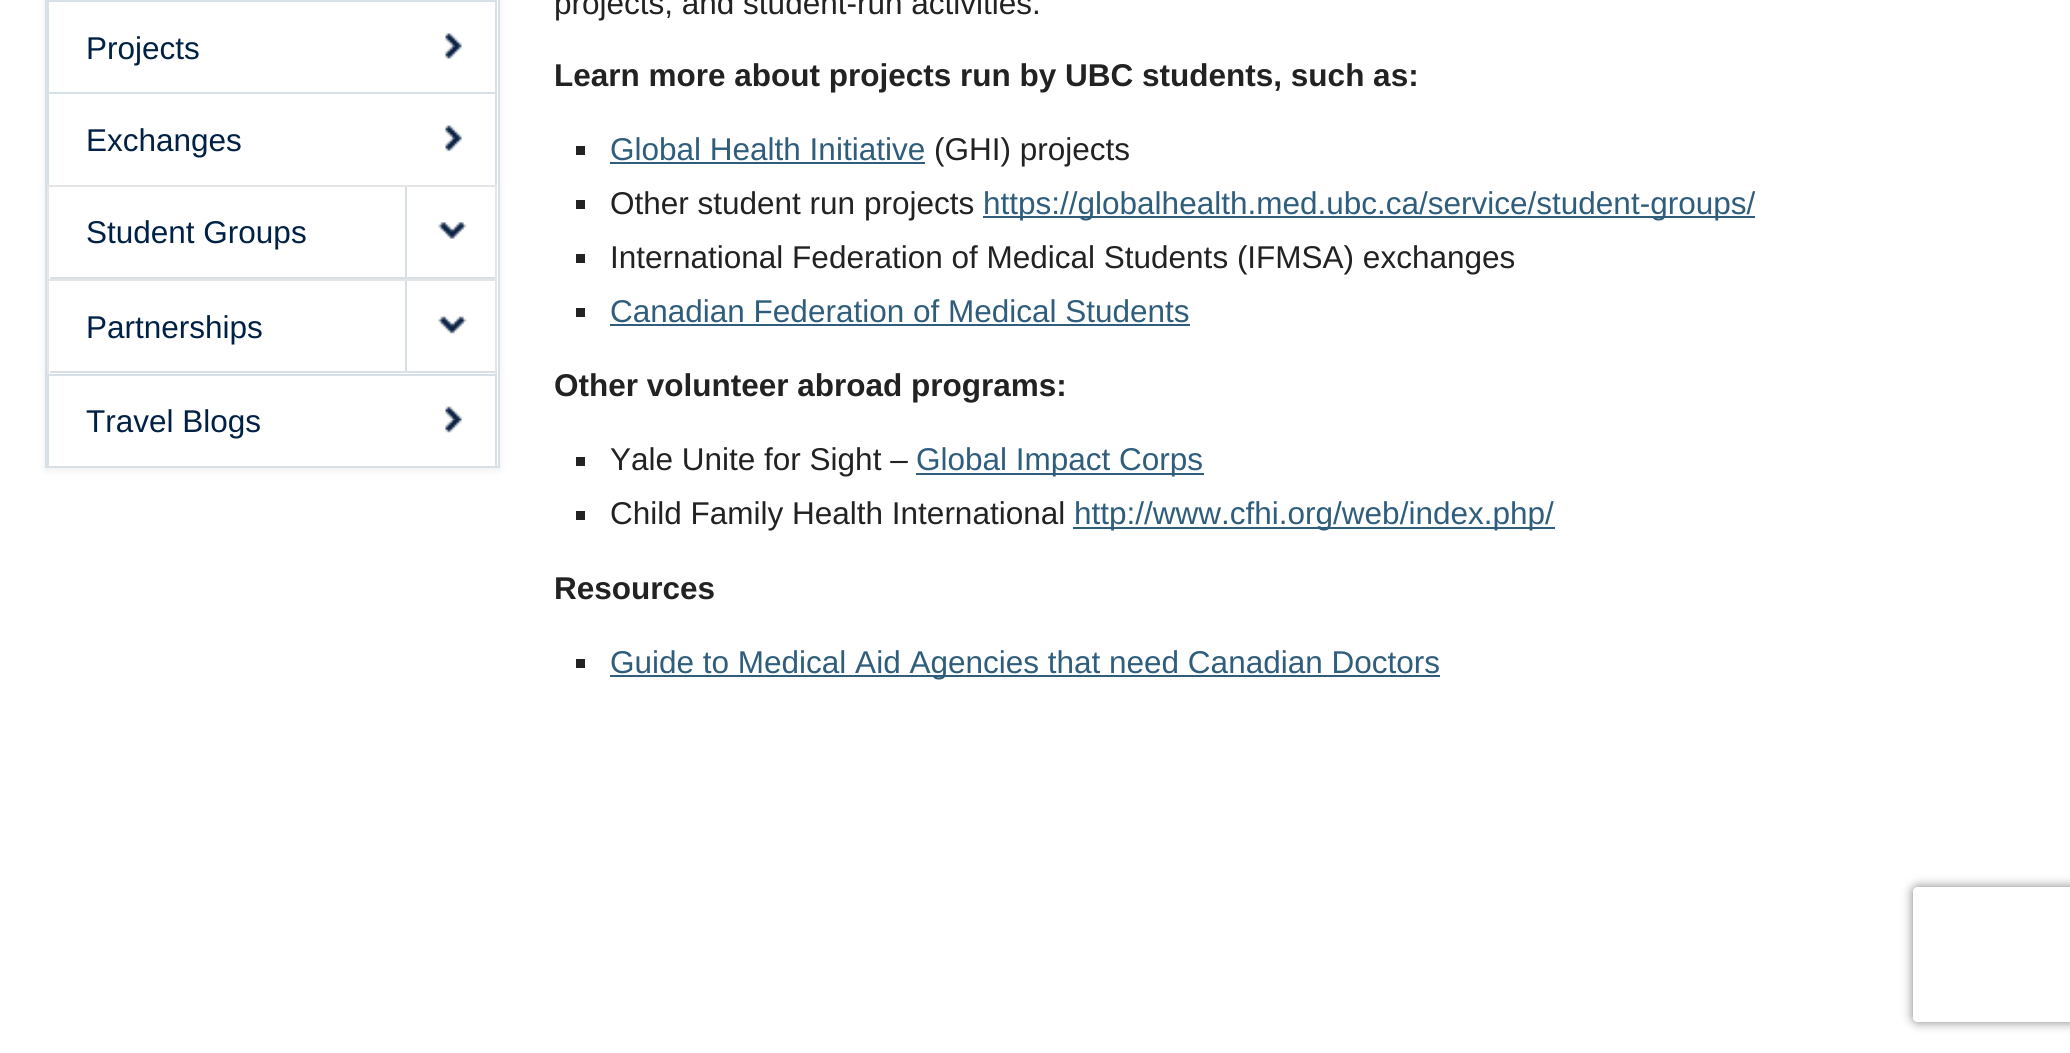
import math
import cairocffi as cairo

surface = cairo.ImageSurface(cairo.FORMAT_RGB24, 2070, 1053)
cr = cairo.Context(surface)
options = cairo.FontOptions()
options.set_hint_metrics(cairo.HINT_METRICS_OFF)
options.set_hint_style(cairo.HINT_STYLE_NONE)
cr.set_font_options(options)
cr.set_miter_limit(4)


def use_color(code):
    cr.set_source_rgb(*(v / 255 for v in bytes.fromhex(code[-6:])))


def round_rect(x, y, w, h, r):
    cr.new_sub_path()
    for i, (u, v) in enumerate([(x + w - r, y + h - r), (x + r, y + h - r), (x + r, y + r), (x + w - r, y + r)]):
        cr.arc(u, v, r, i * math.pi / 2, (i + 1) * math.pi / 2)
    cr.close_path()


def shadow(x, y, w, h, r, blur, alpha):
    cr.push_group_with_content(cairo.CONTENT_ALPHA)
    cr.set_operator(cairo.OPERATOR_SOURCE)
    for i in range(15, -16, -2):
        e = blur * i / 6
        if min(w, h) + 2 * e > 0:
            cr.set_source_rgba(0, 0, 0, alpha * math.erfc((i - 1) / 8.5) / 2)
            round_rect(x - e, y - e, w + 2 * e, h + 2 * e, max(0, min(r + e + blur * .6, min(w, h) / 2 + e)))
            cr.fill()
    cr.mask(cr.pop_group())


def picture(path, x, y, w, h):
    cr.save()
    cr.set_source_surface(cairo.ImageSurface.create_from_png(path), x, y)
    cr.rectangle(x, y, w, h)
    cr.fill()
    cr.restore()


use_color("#ffffff")
cr.paint()
use_color("#000000")
shadow(45, -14, 455, 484, 0, 4.5, 0.07)
use_color("#ffffff")
cr.rectangle(49, 0, 449, 466)
cr.fill()
cr.rectangle(46, -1, 453, 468)
use_color("#d7e0e7")
cr.stroke()
cr.rectangle(47, 0, 450, 2)
cr.fill()
cr.rectangle(495, 0, 2, 92)
cr.fill()
cr.rectangle(47, 0, 2, 92)
cr.fill()
cr.select_font_face("Liberation Sans")
cr.set_font_size(31.5)
use_color("#002145")
cr.move_to(86, 59)
cr.show_text("Projects")
picture("img1.png", 445, 33, 17, 26)
use_color("#d7e0e7")
cr.rectangle(47, 92, 450, 2)
cr.fill()
cr.rectangle(495, 92, 2, 93)
cr.fill()
cr.rectangle(47, 92, 2, 93)
cr.fill()
use_color("#002145")
cr.move_to(86, 151)
cr.show_text("Exchanges")
picture("img2.png", 445, 125, 17, 27)
use_color("#e5e5e5")
cr.rectangle(47, 185, 450, 2)
cr.fill()
cr.rectangle(495, 185, 2, 94)
cr.fill()
cr.rectangle(47, 185, 2, 94)
cr.fill()
use_color("#d7e0e7")
cr.rectangle(50, 277, 445, 2)
cr.fill()
use_color("#002145")
cr.move_to(86, 243)
cr.show_text("Student Groups")
use_color("#d7e0e7")
cr.rectangle(405, 187, 2, 90)
cr.fill()
picture("img3.png", 438, 222, 29, 17)
use_color("#e5e5e5")
cr.rectangle(47, 279, 450, 2)
cr.fill()
cr.rectangle(495, 279, 2, 95)
cr.fill()
cr.rectangle(47, 279, 2, 95)
cr.fill()
use_color("#d7e0e7")
cr.rectangle(50, 371, 445, 2)
cr.fill()
use_color("#002145")
cr.move_to(86, 338)
cr.show_text("Partnerships")
use_color("#d7e0e7")
cr.rectangle(405, 281, 2, 90)
cr.fill()
picture("img4.png", 438, 316, 29, 18)
cr.rectangle(47, 374, 450, 2)
cr.fill()
cr.rectangle(495, 374, 2, 92)
cr.fill()
cr.rectangle(47, 374, 2, 92)
cr.fill()
use_color("#002145")
cr.move_to(86, 432)
cr.show_text("Travel Blogs")
picture("img5.png", 445, 406, 17, 27)
use_color("#222222")
cr.move_to(554, 14)
cr.show_text("projects, and student-run activities.")
cr.select_font_face("Liberation Sans", cairo.FONT_SLANT_NORMAL, cairo.FONT_WEIGHT_BOLD)
cr.move_to(554, 86)
cr.show_text("Learn more about projects run by UBC students, such as:")
cr.rectangle(576, 146, 9, 9)
cr.fill()
cr.select_font_face("Liberation Sans")
use_color("#2f5d7c")
cr.move_to(610, 160)
cr.show_text("Global Health Initiative")
cr.rectangle(610, 162, 315, 2)
cr.fill()
use_color("#222222")
cr.move_to(934, 160)
cr.show_text("(GHI) projects")
cr.rectangle(576, 200, 9, 9)
cr.fill()
cr.move_to(610, 214)
cr.show_text("Other student run projects")
use_color("#2f5d7c")
cr.rectangle(983, 216, 772, 2)
cr.fill()
cr.move_to(983, 214)
cr.show_text("https://globalhealth.med.ubc.ca/service/student-groups/")
use_color("#222222")
cr.rectangle(576, 254, 9, 9)
cr.fill()
cr.move_to(610, 268)
cr.show_text("International Federation of Medical Students (IFMSA) exchanges")
cr.rectangle(576, 308, 9, 9)
cr.fill()
use_color("#2f5d7c")
cr.move_to(610, 322)
cr.show_text("Canadian Federation of Medical Students")
cr.rectangle(610, 324, 580, 2)
cr.fill()
cr.select_font_face("Liberation Sans", cairo.FONT_SLANT_NORMAL, cairo.FONT_WEIGHT_BOLD)
use_color("#222222")
cr.move_to(554, 396)
cr.show_text("Other volunteer abroad programs:")
cr.rectangle(576, 457, 9, 9)
cr.fill()
cr.select_font_face("Liberation Sans")
cr.move_to(610, 470)
cr.show_text("Yale Unite for Sight –")
use_color("#2f5d7c")
cr.rectangle(916, 473, 288, 2)
cr.fill()
cr.move_to(916, 470)
cr.show_text("Global Impact Corps")
use_color("#222222")
cr.rectangle(576, 511, 9, 9)
cr.fill()
cr.move_to(610, 524)
cr.show_text("Child Family Health International")
use_color("#2f5d7c")
cr.rectangle(1073, 527, 482, 2)
cr.fill()
cr.move_to(1074, 524)
cr.show_text("http://www.cfhi.org/web/index.php/")
cr.select_font_face("Liberation Sans", cairo.FONT_SLANT_NORMAL, cairo.FONT_WEIGHT_BOLD)
use_color("#222222")
cr.move_to(554, 599)
cr.show_text("Resources")
cr.rectangle(576, 659, 9, 9)
cr.fill()
use_color("#2f5d7c")
cr.rectangle(610, 675, 830, 2)
cr.fill()
cr.select_font_face("Liberation Sans")
cr.move_to(610, 673)
cr.show_text("Guide to Medical Aid Agencies that need Canadian Doctors")
cr.save()
cr.set_fill_rule(cairo.FILL_RULE_EVEN_ODD)
cr.new_path()
cr.move_to(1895, 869)
cr.line_to(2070, 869)
cr.line_to(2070, 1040)
cr.line_to(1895, 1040)
cr.close_path()
cr.move_to(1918, 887)
cr.line_to(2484, 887)
cr.curve_to(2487, 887, 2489, 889, 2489, 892)
cr.line_to(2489, 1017)
cr.curve_to(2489, 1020, 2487, 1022, 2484, 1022)
cr.line_to(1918, 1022)
cr.curve_to(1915, 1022, 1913, 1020, 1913, 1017)
cr.line_to(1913, 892)
cr.curve_to(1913, 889, 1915, 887, 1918, 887)
cr.close_path()
cr.clip()
use_color("#808080")
shadow(1913, 887, 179, 135, 5, 5.5, 1)
cr.restore()
surface.write_to_png("result.png")
